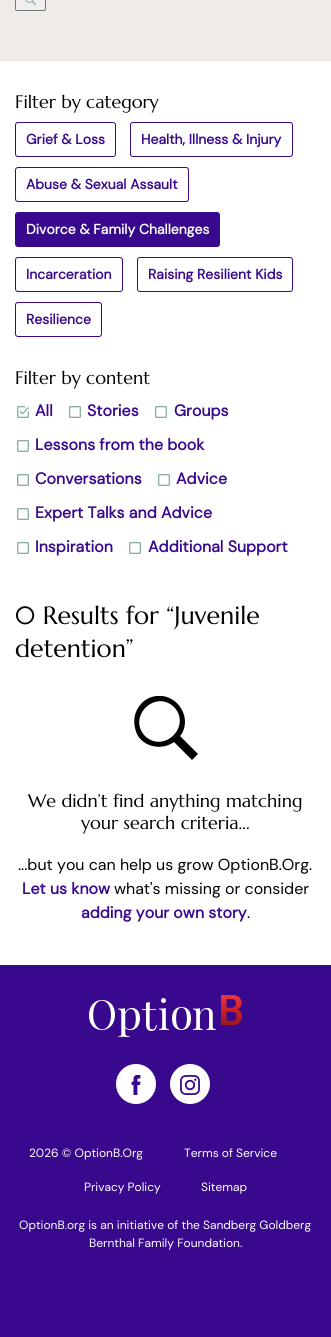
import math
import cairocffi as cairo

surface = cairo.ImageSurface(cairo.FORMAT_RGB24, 331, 1337)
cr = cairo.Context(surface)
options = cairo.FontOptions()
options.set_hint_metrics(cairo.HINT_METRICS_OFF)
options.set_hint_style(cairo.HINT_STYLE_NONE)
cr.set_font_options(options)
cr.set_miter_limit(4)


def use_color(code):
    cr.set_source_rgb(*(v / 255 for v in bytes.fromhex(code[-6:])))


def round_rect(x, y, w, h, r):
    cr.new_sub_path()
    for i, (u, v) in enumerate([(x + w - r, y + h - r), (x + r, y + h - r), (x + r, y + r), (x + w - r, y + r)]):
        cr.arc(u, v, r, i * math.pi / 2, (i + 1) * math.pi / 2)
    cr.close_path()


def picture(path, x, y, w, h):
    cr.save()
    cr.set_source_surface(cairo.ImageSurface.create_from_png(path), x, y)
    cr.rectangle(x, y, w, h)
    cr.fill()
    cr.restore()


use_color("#ffffff")
cr.paint()
use_color("#eeebe8")
cr.rectangle(0, 0, 331, 61)
cr.fill()
use_color("#efefef")
round_rect(15.5, -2.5, 30, 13, 1.5)
cr.fill_preserve()
use_color("#767676")
cr.set_line_width(1)
cr.stroke()
picture("img1.png", 25, 0, 11, 5)
cr.select_font_face("Marcellus")
cr.set_font_size(18)
use_color("#000000")
cr.move_to(15, 108)
cr.show_text("Filter by category")
round_rect(15.5, 122.5, 100, 34, 2.5)
use_color("#38098d")
cr.stroke()
cr.select_font_face("DM Sans", cairo.FONT_SLANT_NORMAL, cairo.FONT_WEIGHT_BOLD)
cr.set_font_size(14)
cr.move_to(26, 144)
cr.show_text("Grief & Loss")
round_rect(130.5, 122.5, 162, 34, 2.5)
cr.stroke()
cr.move_to(141, 144)
cr.show_text("Health, Illness & Injury")
round_rect(15.5, 167.5, 173, 34, 2.5)
cr.stroke()
cr.move_to(26, 189)
cr.show_text("Abuse & Sexual Assault")
round_rect(15.5, 212.5, 204, 34, 2.5)
cr.fill_preserve()
cr.stroke()
use_color("#ffffff")
cr.move_to(26, 234)
cr.show_text("Divorce & Family Challenges")
round_rect(15.5, 257.5, 107, 34, 2.5)
use_color("#38098d")
cr.stroke()
cr.move_to(26, 279)
cr.show_text("Incarceration")
round_rect(137.5, 257.5, 155, 34, 2.5)
cr.stroke()
cr.move_to(148, 279)
cr.show_text("Raising Resilient Kids")
round_rect(15.5, 302.5, 86, 34, 2.5)
cr.stroke()
cr.move_to(26, 324)
cr.show_text("Resilience")
cr.select_font_face("Marcellus")
cr.set_font_size(18)
use_color("#000000")
cr.move_to(15, 384)
cr.show_text("Filter by content")
picture("img2.png", 17, 406, 12, 12)
cr.select_font_face("DM Sans", cairo.FONT_SLANT_NORMAL, cairo.FONT_WEIGHT_BOLD)
cr.set_font_size(16)
use_color("#38098d")
cr.move_to(35, 416)
cr.show_text("All")
picture("img3.png", 69, 406, 12, 12)
cr.move_to(87, 416)
cr.show_text("Stories")
picture("img3.png", 155, 406, 12, 12)
cr.move_to(174, 416)
cr.show_text("Groups")
picture("img3.png", 17, 440, 12, 12)
cr.move_to(35, 450)
cr.show_text("Lessons from the book")
picture("img3.png", 17, 474, 12, 12)
cr.move_to(35, 484)
cr.show_text("Conversations")
picture("img3.png", 158, 474, 12, 12)
cr.move_to(176, 484)
cr.show_text("Advice")
picture("img3.png", 17, 508, 12, 12)
cr.move_to(35, 518)
cr.show_text("Expert Talks and Advice")
picture("img3.png", 17, 542, 12, 12)
cr.move_to(35, 552)
cr.show_text("Inspiration")
picture("img3.png", 129, 542, 12, 12)
cr.move_to(148, 552)
cr.show_text("Additional Support")
cr.select_font_face("Marcellus")
cr.set_font_size(25)
use_color("#000000")
cr.move_to(15, 624)
cr.show_text("0 Results for “Juvenile")
cr.move_to(15, 657)
cr.show_text("detention”")
cr.save()
cr.rectangle(134, 696, 64, 64)
cr.clip()
cr.new_path()
cr.move_to(181, 735)
cr.curve_to(194, 715, 173, 688, 149, 698)
cr.curve_to(143, 701, 139, 705, 136, 712)
cr.curve_to(133, 719, 134, 729, 138, 736)
cr.curve_to(146, 748, 163, 750, 174, 742)
cr.line_to(192, 760)
cr.line_to(198, 754)
cr.line_to(180, 736)
cr.close_path()
cr.move_to(174, 707)
cr.curve_to(192, 726, 164, 754, 145, 736)
cr.curve_to(127, 717, 155, 689, 174, 707)
cr.close_path()
cr.fill()
cr.restore()
cr.set_font_size(18)
cr.move_to(28, 807)
cr.show_text("We didn’t find anything matching")
cr.move_to(81, 829)
cr.show_text("your search criteria...")
cr.select_font_face("DM Sans")
cr.set_font_size(16)
cr.move_to(18, 870)
cr.show_text("...but you can help us grow OptionB.Org.")
cr.select_font_face("DM Sans", cairo.FONT_SLANT_NORMAL, cairo.FONT_WEIGHT_BOLD)
use_color("#38098d")
cr.move_to(22, 894)
cr.show_text("Let us know")
cr.select_font_face("DM Sans")
use_color("#000000")
cr.move_to(114, 894)
cr.show_text("what's missing or consider")
cr.select_font_face("DM Sans", cairo.FONT_SLANT_NORMAL, cairo.FONT_WEIGHT_BOLD)
use_color("#38098d")
cr.move_to(81, 918)
cr.show_text("adding your own story")
cr.select_font_face("DM Sans")
use_color("#000000")
cr.move_to(247, 918)
cr.show_text(".")
use_color("#38098d")
cr.rectangle(0, 965, 331, 372)
cr.fill()
picture("img4.png", 89, 995, 153, 42)
use_color("#ffffff")
cr.arc(136, 1084, 20, 0, 2 * math.pi)
cr.fill()
picture("img5.png", 131, 1075, 10, 20)
cr.arc(190, 1084, 20, 0, 2 * math.pi)
cr.fill()
picture("img6.png", 180, 1075, 20, 20)
cr.set_font_size(12)
cr.move_to(29, 1157)
cr.show_text("2026 © OptionB.Org")
cr.move_to(184, 1157)
cr.show_text("Terms of Service")
cr.move_to(84, 1191)
cr.show_text("Privacy Policy")
cr.move_to(201, 1191)
cr.show_text("Sitemap")
cr.move_to(19, 1229)
cr.show_text("OptionB.org is an initiative of the Sandberg Goldberg")
cr.move_to(89, 1247)
cr.show_text("Bernthal Family Foundation.")
surface.write_to_png("result.png")
